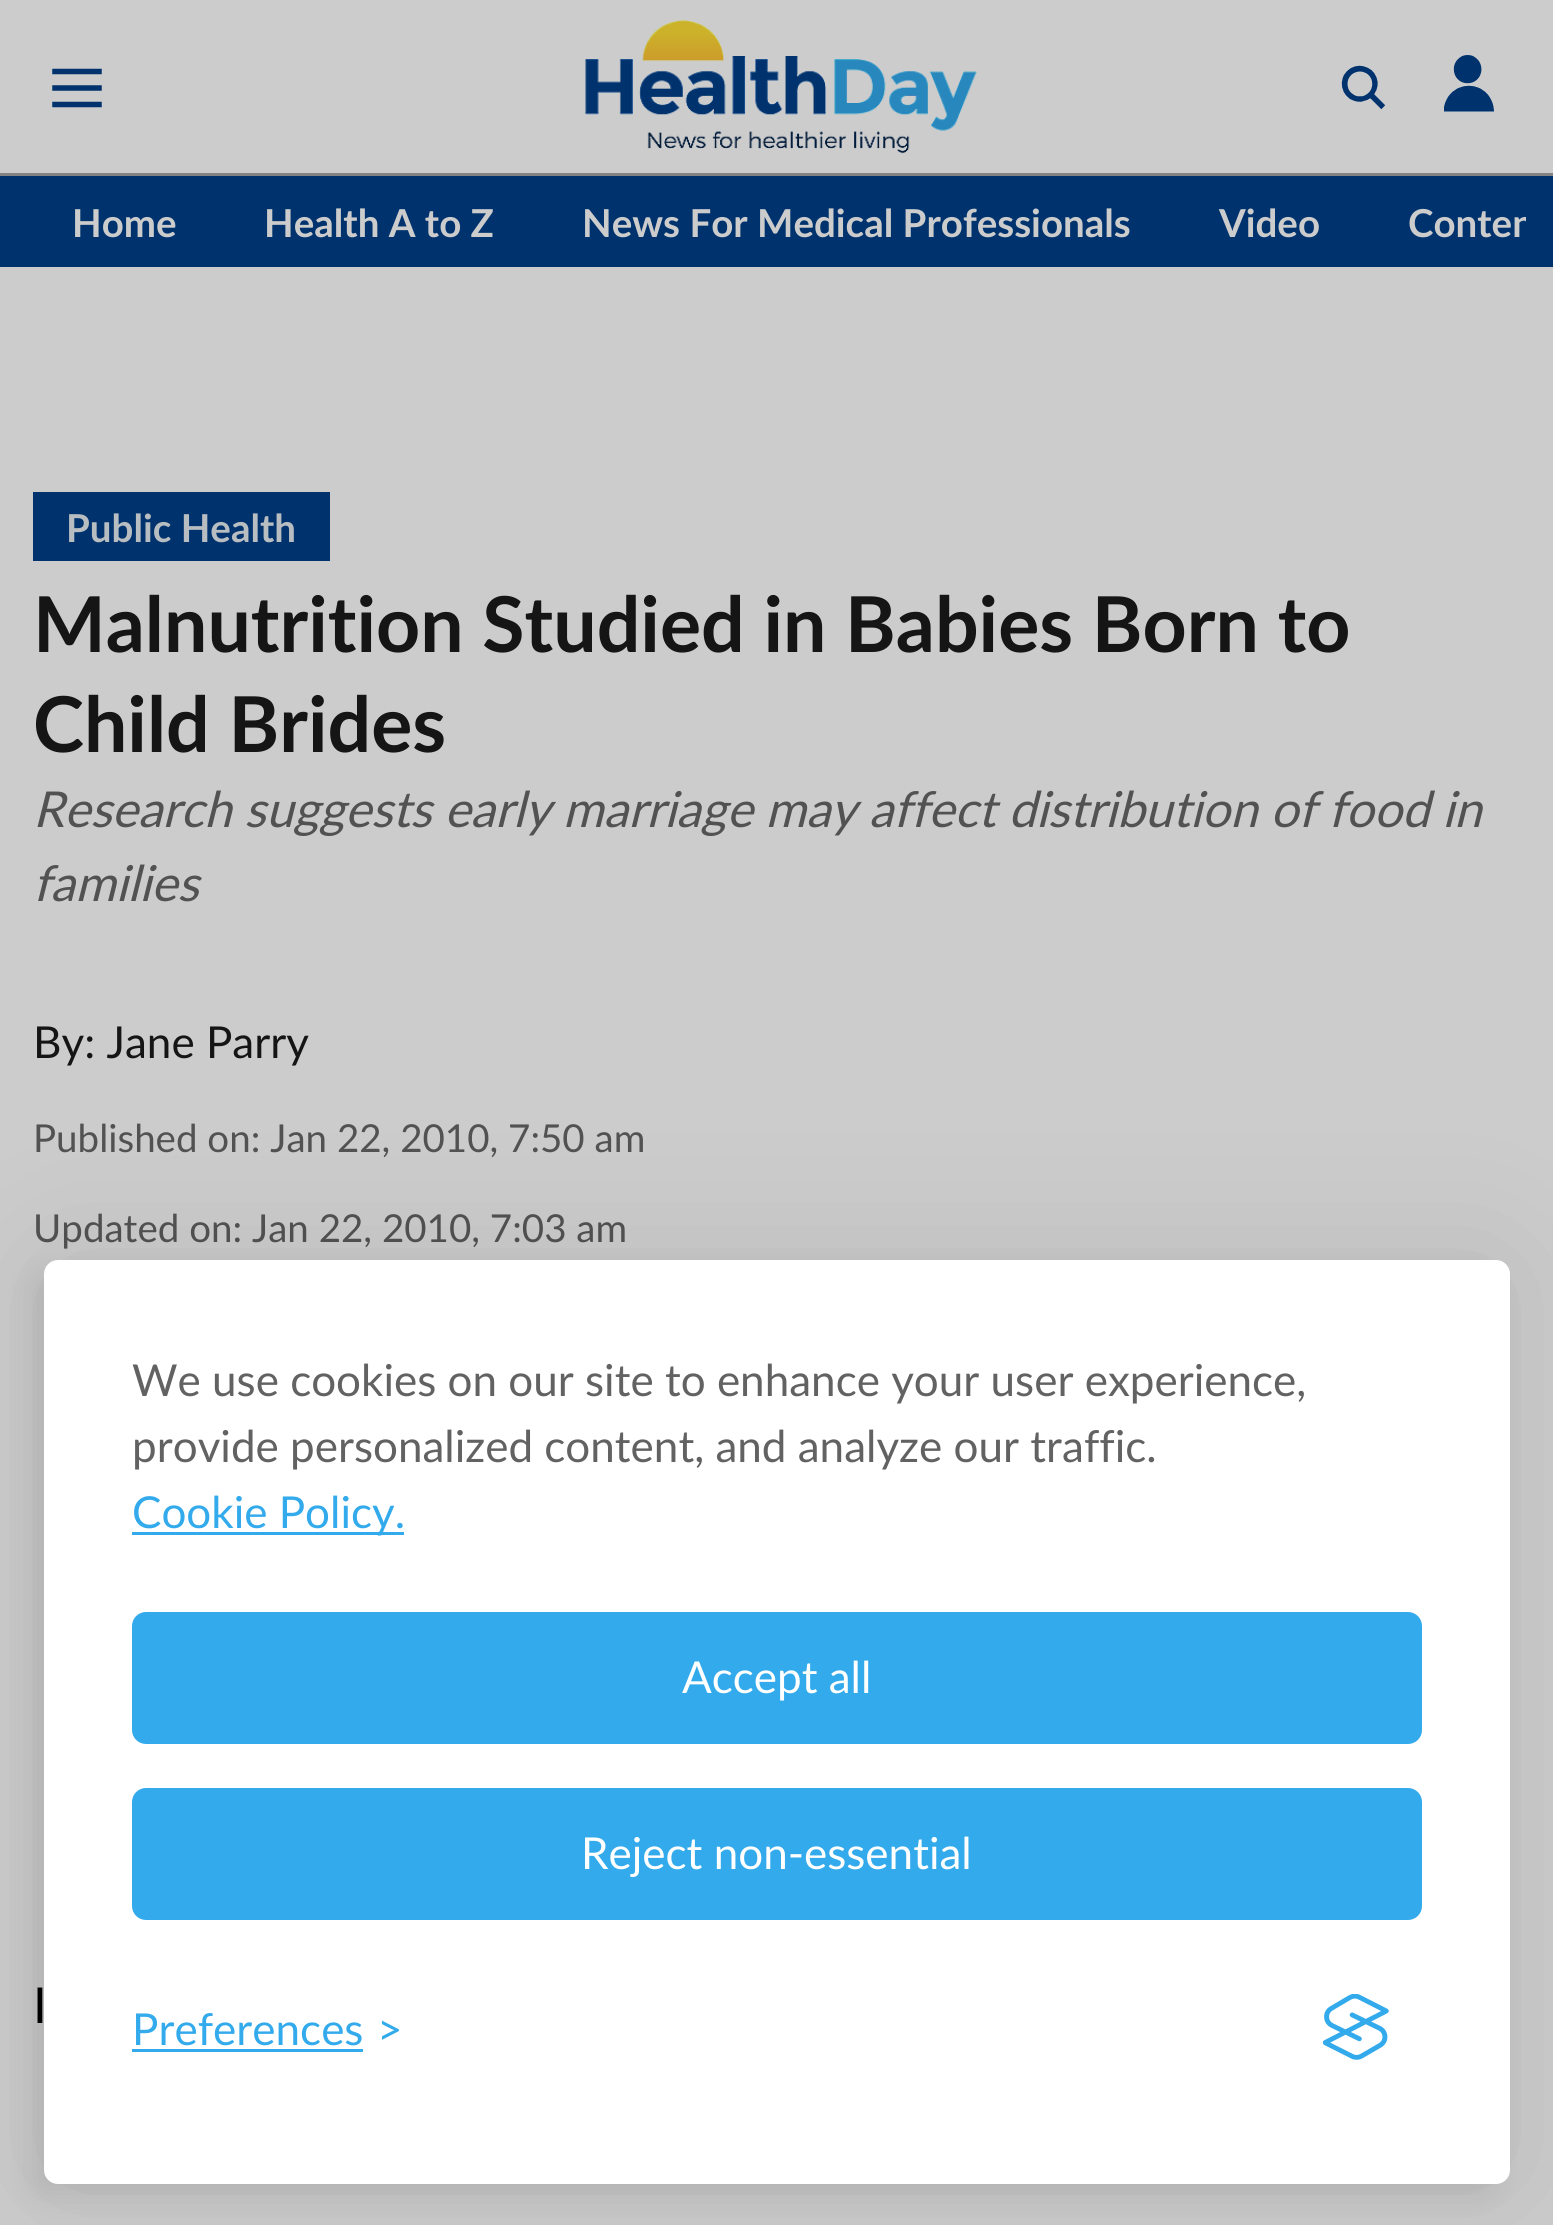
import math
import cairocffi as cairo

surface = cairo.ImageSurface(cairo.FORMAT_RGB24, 1553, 2225)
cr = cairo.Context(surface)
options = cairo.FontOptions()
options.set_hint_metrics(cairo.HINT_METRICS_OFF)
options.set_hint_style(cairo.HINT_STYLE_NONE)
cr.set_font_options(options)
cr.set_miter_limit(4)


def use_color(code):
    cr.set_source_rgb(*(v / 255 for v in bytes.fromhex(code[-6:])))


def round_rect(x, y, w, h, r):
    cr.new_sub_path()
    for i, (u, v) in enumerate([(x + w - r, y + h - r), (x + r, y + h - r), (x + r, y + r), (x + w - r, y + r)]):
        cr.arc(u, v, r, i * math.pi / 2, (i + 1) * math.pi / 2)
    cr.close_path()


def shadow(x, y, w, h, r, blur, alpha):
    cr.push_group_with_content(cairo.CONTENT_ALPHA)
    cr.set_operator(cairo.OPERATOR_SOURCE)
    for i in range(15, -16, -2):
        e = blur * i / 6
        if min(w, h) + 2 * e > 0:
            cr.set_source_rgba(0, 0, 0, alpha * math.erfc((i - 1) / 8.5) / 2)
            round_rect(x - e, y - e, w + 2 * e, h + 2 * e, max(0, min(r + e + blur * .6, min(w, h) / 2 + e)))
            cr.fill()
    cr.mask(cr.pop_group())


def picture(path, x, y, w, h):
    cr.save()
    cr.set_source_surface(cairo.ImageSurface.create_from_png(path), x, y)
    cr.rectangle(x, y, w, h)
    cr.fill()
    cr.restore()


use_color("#cccccc")
cr.paint()
use_color("#838383")
cr.rectangle(0, 173, 1553, 3)
cr.fill()
picture("img1.png", 52, 68, 50, 40)
picture("img2.png", 585, 20, 392, 134)
picture("img3.png", 1341, 65, 45, 45)
picture("img4.png", 1444, 55, 50, 57)
use_color("#00336e")
cr.rectangle(0, 176, 1553, 91)
cr.fill()
cr.select_font_face("Lato", cairo.FONT_SLANT_NORMAL, cairo.FONT_WEIGHT_BOLD)
cr.set_font_size(38.5)
use_color("#cccccc")
cr.move_to(72, 237)
cr.show_text("Home")
cr.move_to(264, 237)
cr.show_text("Health A to Z")
cr.move_to(582, 237)
cr.show_text("News For Medical Professionals")
cr.move_to(1219, 237)
cr.show_text("Video")
cr.save()
cr.rectangle(28, 176, 1498, 91)
cr.clip()
cr.move_to(1408, 237)
cr.show_text("Conten")
cr.restore()
use_color("#00336e")
cr.rectangle(33, 492, 297, 69)
cr.fill()
use_color("#b8bdc2")
cr.move_to(66, 542)
cr.show_text("Public Health")
cr.set_font_size(77)
use_color("#151515")
cr.move_to(33, 652)
cr.show_text("Malnutrition Studied in Babies Born to")
cr.move_to(33, 752)
cr.show_text("Child Brides")
cr.select_font_face("Lato", cairo.FONT_SLANT_ITALIC)
cr.set_font_size(49.5)
use_color("#525252")
cr.move_to(33, 827)
cr.show_text("Research suggests early marriage may affect distribution of food in")
cr.move_to(33, 901)
cr.show_text("families")
cr.select_font_face("Lato")
cr.set_font_size(44)
use_color("#151515")
cr.move_to(33, 1058)
cr.show_text("By: Jane Parry")
cr.set_font_size(38.5)
use_color("#525252")
cr.move_to(33, 1152)
cr.show_text("Published on: Jan 22, 2010, 7:50 am")
cr.move_to(33, 1242)
cr.show_text("Updated on: Jan 22, 2010, 7:03 am")
cr.set_font_size(49.5)
use_color("#000000")
cr.move_to(33, 2023)
cr.show_text("I")
use_color("#000000")
shadow(44, 1260, 1466, 924, 14, 69, 0.1)
shadow(30, 1273, 1466, 924, 14, 14, 0.07)
use_color("#ffffff")
round_rect(44, 1260, 1466, 924, 14)
cr.fill()
cr.set_font_size(44)
use_color("#626262")
cr.move_to(132, 1396)
cr.show_text("We use cookies on our site to enhance your user experience,")
cr.move_to(132, 1462)
cr.show_text("provide personalized content, and analyze our traffic.")
use_color("#32aaec")
cr.rectangle(132, 1532, 272, 3)
cr.fill()
cr.move_to(132, 1528)
cr.show_text("Cookie Policy.")
round_rect(135, 1615, 1284, 126, 11)
cr.fill_preserve()
cr.set_line_width(6)
cr.stroke()
use_color("#ffffff")
cr.move_to(682, 1693)
cr.show_text("Accept all")
use_color("#32aaec")
round_rect(135, 1791, 1284, 126, 11)
cr.fill_preserve()
cr.stroke()
use_color("#ffffff")
cr.move_to(581, 1869)
cr.show_text("Reject non-essential")
use_color("#32aaec")
cr.move_to(132, 2045)
cr.show_text("Preferences")
cr.rectangle(132, 2049, 231, 3)
cr.fill()
cr.move_to(377, 2045)
cr.show_text(">")
picture("img5.png", 1323, 1994, 66, 66)
surface.write_to_png("result.png")
